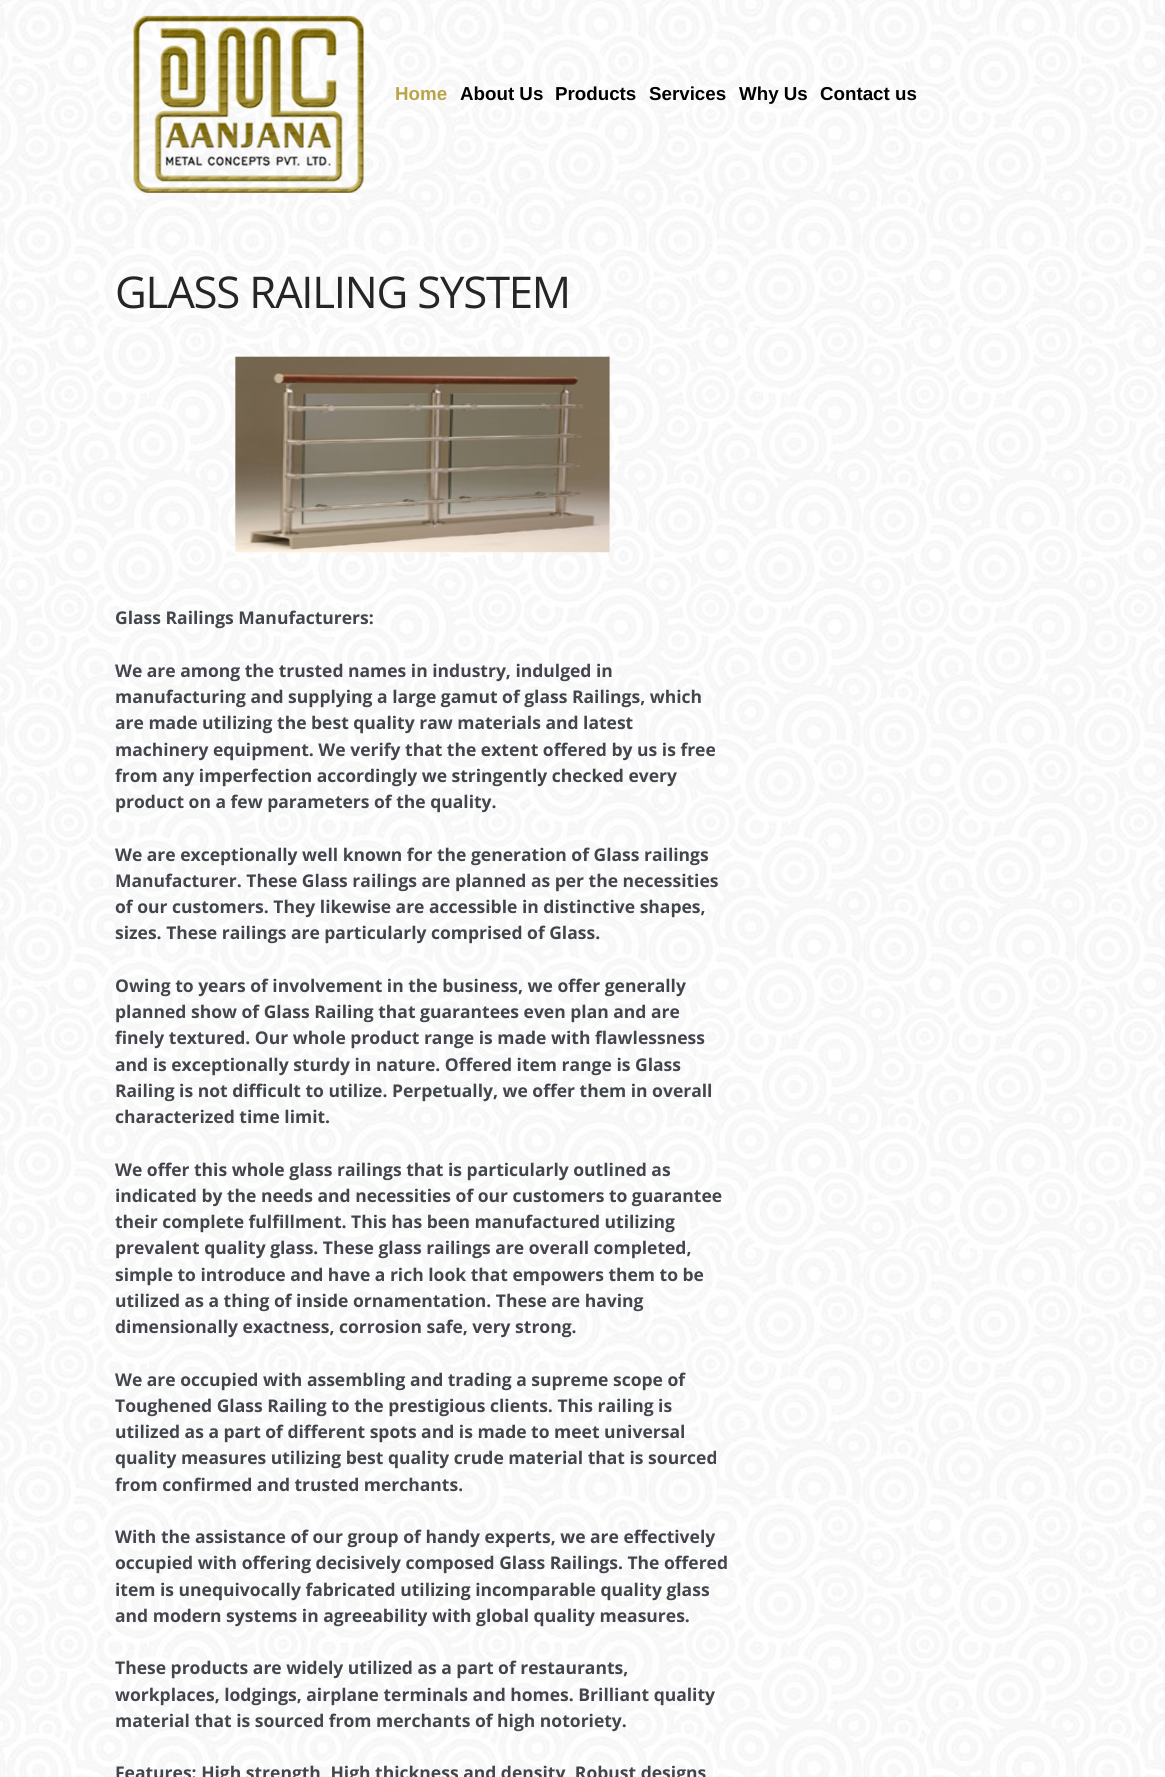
import math
import cairocffi as cairo

surface = cairo.ImageSurface(cairo.FORMAT_RGB24, 1165, 1777)
cr = cairo.Context(surface)
options = cairo.FontOptions()
options.set_hint_metrics(cairo.HINT_METRICS_OFF)
options.set_hint_style(cairo.HINT_STYLE_NONE)
cr.set_font_options(options)
cr.set_miter_limit(4)


def use_color(code):
    cr.set_source_rgb(*(v / 255 for v in bytes.fromhex(code[-6:])))


def spaced_text(x, y, s, letter, word):
    cr.move_to(x, y)
    for ch in s:
        cr.show_text(ch)
        cr.rel_move_to(letter + word * (ch == ' '), 0)


def picture(path, x, y, w, h):
    cr.save()
    cr.set_source_surface(cairo.ImageSurface.create_from_png(path), x, y)
    cr.rectangle(x, y, w, h)
    cr.fill()
    cr.restore()


use_color("#ffffff")
cr.paint()
picture("img1.png", 0, 0, 1165, 1777)
picture("img2.png", 133, 15, 231, 178)
cr.select_font_face("Liberation Sans", cairo.FONT_SLANT_NORMAL, cairo.FONT_WEIGHT_BOLD)
cr.set_font_size(18.75)
use_color("#baa54a")
cr.move_to(395, 100)
cr.show_text("Home")
use_color("#000000")
cr.move_to(460, 100)
cr.show_text("About Us")
cr.move_to(555, 100)
cr.show_text("Products")
cr.move_to(649, 100)
cr.show_text("Services")
picture("img3.png", 686, 108, 4, 4)
cr.move_to(739, 100)
cr.show_text("Why Us")
cr.move_to(820, 100)
cr.show_text("Contact us")
cr.select_font_face("Open Sans")
cr.set_font_size(43.75)
use_color("#252525")
spaced_text(115, 308, "GLASS RAILING SYSTEM", -1.25, 0)
picture("img4.png", 235, 356, 375, 197)
cr.select_font_face("Open Sans", cairo.FONT_SLANT_NORMAL, cairo.FONT_WEIGHT_BOLD)
cr.set_font_size(17.5)
use_color("#43474d")
cr.move_to(115, 624)
cr.show_text("Glass Railings Manufacturers:")
cr.move_to(115, 677)
cr.show_text("We are among the trusted names in industry, indulged in")
cr.move_to(115, 703)
cr.show_text("manufacturing and supplying a large gamut of glass Railings, which")
cr.move_to(115, 729)
cr.show_text("are made utilizing the best quality raw materials and latest")
cr.move_to(115, 756)
cr.show_text("machinery equipment. We verify that the extent offered by us is free")
cr.move_to(115, 782)
cr.show_text("from any imperfection accordingly we stringently checked every")
cr.move_to(115, 808)
cr.show_text("product on a few parameters of the quality.")
cr.move_to(115, 861)
cr.show_text("We are exceptionally well known for the generation of Glass railings")
cr.move_to(115, 887)
cr.show_text("Manufacturer. These Glass railings are planned as per the necessities")
cr.move_to(115, 913)
cr.show_text("of our customers. They likewise are accessible in distinctive shapes,")
cr.move_to(115, 939)
cr.show_text("sizes. These railings are particularly comprised of Glass.")
cr.move_to(115, 992)
cr.show_text("Owing to years of involvement in the business, we offer generally")
cr.move_to(115, 1018)
cr.show_text("planned show of Glass Railing that guarantees even plan and are")
cr.move_to(115, 1044)
cr.show_text("finely textured. Our whole product range is made with flawlessness")
cr.move_to(115, 1071)
cr.show_text("and is exceptionally sturdy in nature. Offered item range is Glass")
cr.move_to(115, 1097)
cr.show_text("Railing is not difficult to utilize. Perpetually, we offer them in overall")
cr.move_to(115, 1123)
cr.show_text("characterized time limit.")
cr.move_to(115, 1176)
cr.show_text("We offer this whole glass railings that is particularly outlined as")
cr.move_to(115, 1202)
cr.show_text("indicated by the needs and necessities of our customers to guarantee")
cr.move_to(115, 1228)
cr.show_text("their complete fulfillment. This has been manufactured utilizing")
cr.move_to(115, 1254)
cr.show_text("prevalent quality glass. These glass railings are overall completed,")
cr.move_to(115, 1281)
cr.show_text("simple to introduce and have a rich look that empowers them to be")
cr.move_to(115, 1307)
cr.show_text("utilized as a thing of inside ornamentation. These are having")
cr.move_to(115, 1333)
cr.show_text("dimensionally exactness, corrosion safe, very strong.")
cr.move_to(115, 1386)
cr.show_text("We are occupied with assembling and trading a supreme scope of")
cr.move_to(115, 1412)
cr.show_text("Toughened Glass Railing to the prestigious clients. This railing is")
cr.move_to(115, 1438)
cr.show_text("utilized as a part of different spots and is made to meet universal")
cr.move_to(115, 1464)
cr.show_text("quality measures utilizing best quality crude material that is sourced")
cr.move_to(115, 1491)
cr.show_text("from confirmed and trusted merchants.")
cr.move_to(115, 1543)
cr.show_text("With the assistance of our group of handy experts, we are effectively")
cr.move_to(115, 1569)
cr.show_text("occupied with offering decisively composed Glass Railings. The offered")
cr.move_to(115, 1596)
cr.show_text("item is unequivocally fabricated utilizing incomparable quality glass")
cr.move_to(115, 1622)
cr.show_text("and modern systems in agreeability with global quality measures.")
cr.move_to(115, 1674)
cr.show_text("These products are widely utilized as a part of restaurants,")
cr.move_to(115, 1701)
cr.show_text("workplaces, lodgings, airplane terminals and homes. Brilliant quality")
cr.move_to(115, 1727)
cr.show_text("material that is sourced from merchants of high notoriety.")
cr.move_to(115, 1779)
cr.show_text("Features: High strength, High thickness and density, Robust designs")
surface.write_to_png("result.png")
